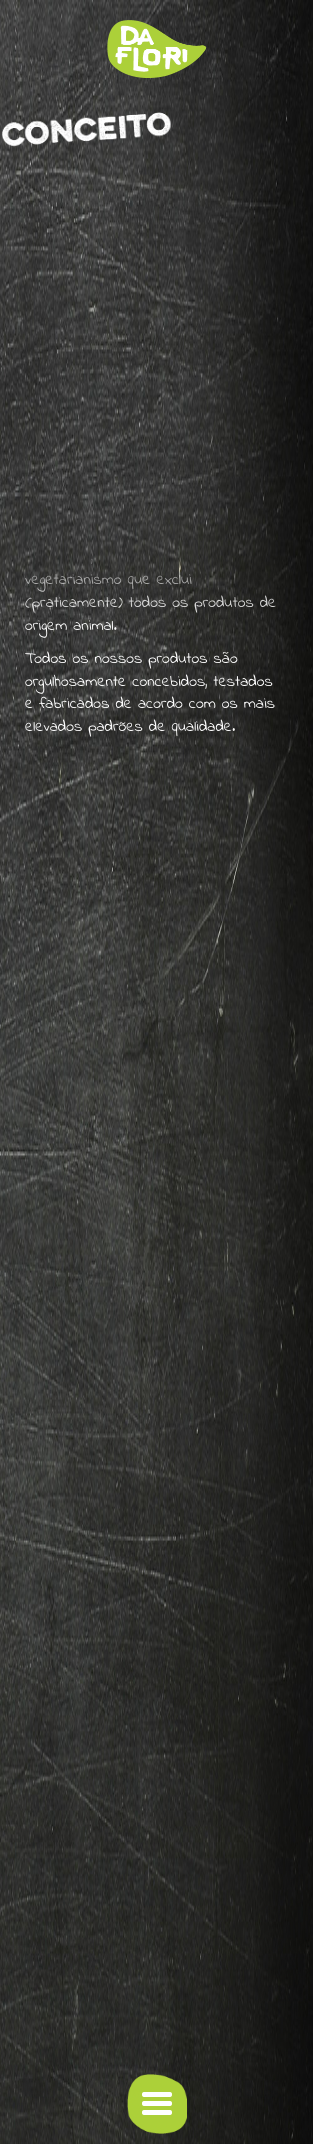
import math
import cairocffi as cairo

surface = cairo.ImageSurface(cairo.FORMAT_RGB24, 313, 2144)
cr = cairo.Context(surface)
options = cairo.FontOptions()
options.set_hint_metrics(cairo.HINT_METRICS_OFF)
options.set_hint_style(cairo.HINT_STYLE_NONE)
cr.set_font_options(options)
cr.set_miter_limit(4)


def use_color(code):
    cr.set_source_rgb(*(v / 255 for v in bytes.fromhex(code[-6:])))


def round_rect(x, y, w, h, r):
    cr.new_sub_path()
    for i, (u, v) in enumerate([(x + w - r, y + h - r), (x + r, y + h - r), (x + r, y + r), (x + w - r, y + r)]):
        cr.arc(u, v, r, i * math.pi / 2, (i + 1) * math.pi / 2)
    cr.close_path()


def picture(path, x, y, w, h):
    cr.save()
    cr.set_source_surface(cairo.ImageSurface.create_from_png(path), x, y)
    cr.rectangle(x, y, w, h)
    cr.fill()
    cr.restore()


use_color("#ffffff")
cr.paint()
picture("img4.png", 0, 0, 313, 2144)
picture("img1.png", 107, 20, 100, 58)
picture("img2.png", 1, 112, 170, 35)
cr.select_font_face("Indie Flower")
cr.set_font_size(16)
use_color("#ffffff")
cr.move_to(91, 561)
cr.show_text(",")
cr.move_to(25, 584)
cr.show_text("vegetarianismo que exclui")
cr.move_to(25, 607)
cr.show_text("(praticamente) todos os produtos de")
cr.move_to(25, 630)
cr.show_text("origem animal.")
picture("img3.png", 25, 154, 256, 476)
cr.move_to(25, 663)
cr.show_text("Todos os nossos produtos são")
cr.move_to(25, 686)
cr.show_text("orgulhosamente concebidos, testados")
cr.move_to(25, 708)
cr.show_text("e fabricados de acordo com os mais")
cr.move_to(25, 731)
cr.show_text("elevados padrões de qualidade.")
picture("img5.png", 127, 2074, 60, 60)
round_rect(142, 2101, 30, 5, 2)
cr.fill()
round_rect(142, 2092, 30, 5, 2)
cr.fill()
round_rect(142, 2110, 30, 5, 2)
cr.fill()
surface.write_to_png("result.png")
